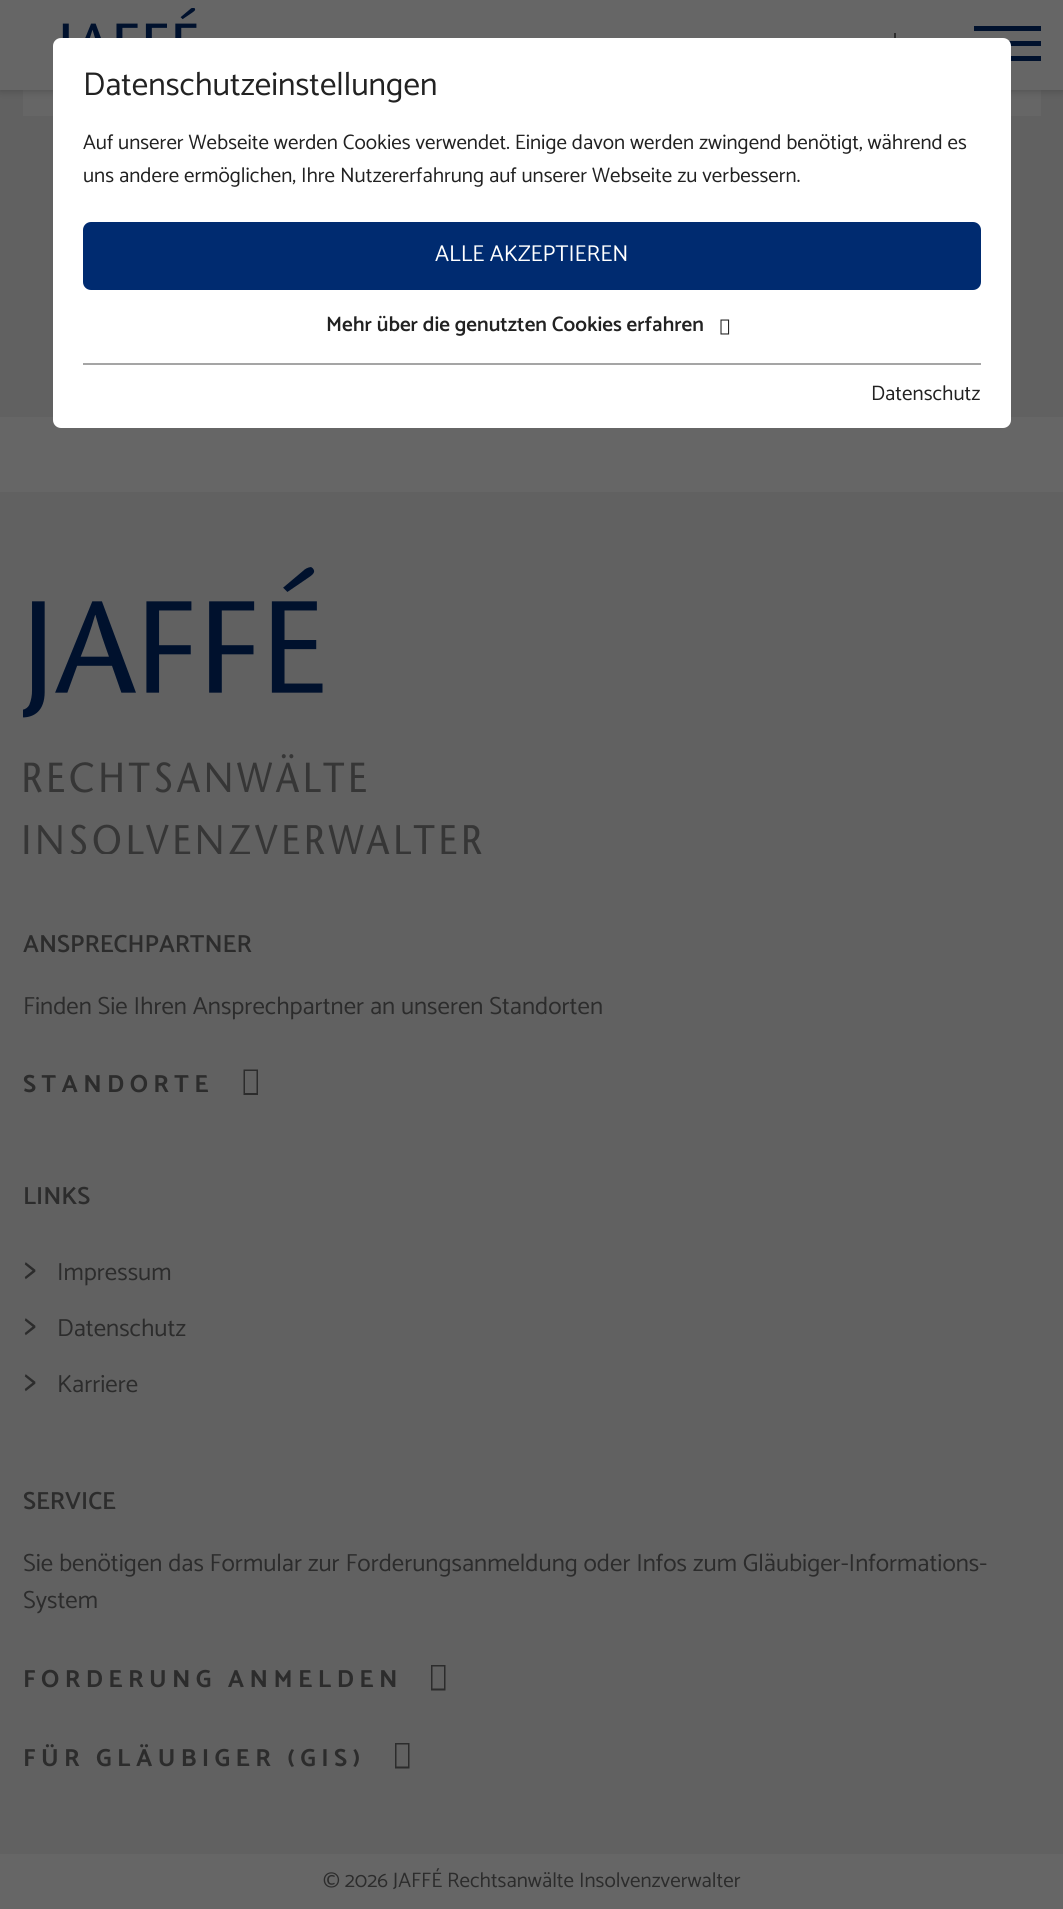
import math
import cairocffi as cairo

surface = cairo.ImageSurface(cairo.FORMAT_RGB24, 1063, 1909)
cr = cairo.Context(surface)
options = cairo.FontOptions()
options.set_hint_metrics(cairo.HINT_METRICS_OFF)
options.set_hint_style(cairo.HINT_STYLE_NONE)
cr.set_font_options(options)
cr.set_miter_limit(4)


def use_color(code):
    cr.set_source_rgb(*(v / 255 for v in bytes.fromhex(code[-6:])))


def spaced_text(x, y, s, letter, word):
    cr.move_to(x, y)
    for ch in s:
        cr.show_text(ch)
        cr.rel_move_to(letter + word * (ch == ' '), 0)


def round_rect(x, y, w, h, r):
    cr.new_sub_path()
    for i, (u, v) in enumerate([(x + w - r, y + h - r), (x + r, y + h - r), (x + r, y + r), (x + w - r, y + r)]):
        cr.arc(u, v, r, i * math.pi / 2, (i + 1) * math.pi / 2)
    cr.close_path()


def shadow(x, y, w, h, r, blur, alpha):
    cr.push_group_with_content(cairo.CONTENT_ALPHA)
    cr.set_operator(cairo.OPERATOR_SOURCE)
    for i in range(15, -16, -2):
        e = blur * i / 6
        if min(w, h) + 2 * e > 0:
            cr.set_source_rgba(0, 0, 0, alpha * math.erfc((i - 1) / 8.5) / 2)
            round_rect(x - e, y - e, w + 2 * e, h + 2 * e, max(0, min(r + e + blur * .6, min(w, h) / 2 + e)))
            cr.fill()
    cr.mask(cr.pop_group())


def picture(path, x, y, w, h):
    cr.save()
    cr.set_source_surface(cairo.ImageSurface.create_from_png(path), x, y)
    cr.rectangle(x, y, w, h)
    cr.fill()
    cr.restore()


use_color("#666666")
cr.paint()
use_color("#616161")
cr.rectangle(0, 90, 1063, 327)
cr.fill()
use_color("#666666")
cr.rectangle(23, 90, 1018, 26)
cr.fill()
use_color("#000000")
shadow(0, 0, 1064, 90, 0, 4.5, 0.26)
use_color("#666666")
cr.rectangle(0, 0, 1063, 90)
cr.fill()
picture("img1.png", 62, 8, 135, 30)
use_color("#00112d")
cr.rectangle(974, 26, 67, 5)
cr.fill()
cr.rectangle(1009, 41, 32, 5)
cr.fill()
cr.rectangle(1011, 56, 30, 5)
cr.fill()
use_color("#2c2c2c")
cr.rectangle(894, 33, 2, 5)
cr.fill()
use_color("#ffffff")
round_rect(53, 38, 958, 390, 8)
cr.fill()
cr.select_font_face("Catamaran Thin")
cr.set_font_size(33)
use_color("#222222")
cr.move_to(83, 95)
cr.show_text("Datenschutzeinstellungen")
cr.set_font_size(21)
cr.move_to(83, 149)
cr.show_text("Auf unserer Webseite werden Cookies verwendet. Einige davon werden zwingend benötigt, während es")
cr.move_to(83, 182)
cr.show_text("uns andere ermöglichen, Ihre Nutzererfahrung auf unserer Webseite zu verbessern.")
use_color("#002b70")
round_rect(83, 222, 898, 68, 8)
cr.fill()
cr.set_font_size(23)
use_color("#ffffff")
cr.move_to(435, 261)
cr.show_text("ALLE AKZEPTIEREN")
cr.select_font_face("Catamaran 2 Thin")
cr.set_font_size(21)
use_color("#222222")
cr.move_to(326, 331)
cr.show_text("Mehr über die genutzten Cookies erfahren")
picture("img2.png", 720, 319, 10, 16)
use_color("#a5a5a5")
cr.rectangle(83, 363, 898, 2)
cr.fill()
cr.select_font_face("Catamaran Thin")
use_color("#222222")
cr.move_to(871, 400)
cr.show_text("Datenschutz")
use_color("#616161")
cr.rectangle(0, 492, 1063, 1362)
cr.fill()
picture("img3.png", 23, 567, 459, 287)
cr.select_font_face("Catamaran 2 Thin")
cr.set_font_size(24.8)
use_color("#2c2c2c")
cr.move_to(23, 952)
cr.show_text("ANSPRECHPARTNER")
cr.select_font_face("Catamaran Thin")
cr.move_to(23, 1014)
cr.show_text("Finden Sie Ihren Ansprechpartner an unseren Standorten")
cr.select_font_face("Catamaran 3 Thin")
spaced_text(23, 1092, "STANDORTE", 5.4, 0)
cr.new_path()
cr.move_to(243.5, 1095)
cr.line_to(243.5, 1069.5)
cr.line_to(258, 1069.5)
cr.line_to(258, 1095)
cr.close_path()
cr.move_to(245, 1093)
cr.line_to(256.5, 1093)
cr.line_to(256.5, 1071)
cr.line_to(245, 1071)
cr.close_path()
cr.fill()
cr.select_font_face("Catamaran 2 Thin")
cr.move_to(23, 1204)
cr.show_text("LINKS")
cr.select_font_face("Catamaran Thin")
cr.set_font_size(38)
cr.move_to(24, 1280)
cr.show_text(">")
cr.set_font_size(24.8)
cr.move_to(57, 1280)
cr.show_text("Impressum")
cr.set_font_size(38)
cr.move_to(24, 1336)
cr.show_text(">")
cr.set_font_size(24.8)
cr.move_to(57, 1336)
cr.show_text("Datenschutz")
cr.set_font_size(38)
cr.move_to(24, 1392)
cr.show_text(">")
cr.set_font_size(24.8)
cr.move_to(57, 1392)
cr.show_text("Karriere")
cr.select_font_face("Catamaran 2 Thin")
cr.move_to(23, 1509)
cr.show_text("SERVICE")
cr.select_font_face("Catamaran Thin")
cr.move_to(23, 1571)
cr.show_text("Sie benötigen das Formular zur Forderungsanmeldung oder Infos zum Gläubiger-Informations-")
cr.move_to(23, 1608)
cr.show_text("System")
cr.select_font_face("Catamaran 3 Thin")
spaced_text(23, 1687, "FORDERUNG ANMELDEN", 5.4, 0)
cr.new_path()
cr.move_to(431, 1690.5)
cr.line_to(431, 1665)
cr.line_to(445.5, 1665)
cr.line_to(445.5, 1690.5)
cr.close_path()
cr.move_to(432.5, 1688.5)
cr.line_to(444, 1688.5)
cr.line_to(444, 1666.5)
cr.line_to(432.5, 1666.5)
cr.close_path()
cr.fill()
spaced_text(23, 1766, "FÜR GLÄUBIGER (GIS)", 5.4, 0)
cr.new_path()
cr.move_to(395, 1768.5)
cr.line_to(395, 1743)
cr.line_to(409.5, 1743)
cr.line_to(409.5, 1768.5)
cr.close_path()
cr.move_to(396.5, 1766.5)
cr.line_to(408, 1766.5)
cr.line_to(408, 1744.5)
cr.line_to(396.5, 1744.5)
cr.close_path()
cr.fill()
cr.select_font_face("Catamaran Thin")
cr.set_font_size(21)
cr.move_to(323, 1887)
cr.show_text("© 2026 JAFFÉ Rechtsanwälte Insolvenzverwalter")
surface.write_to_png("result.png")
